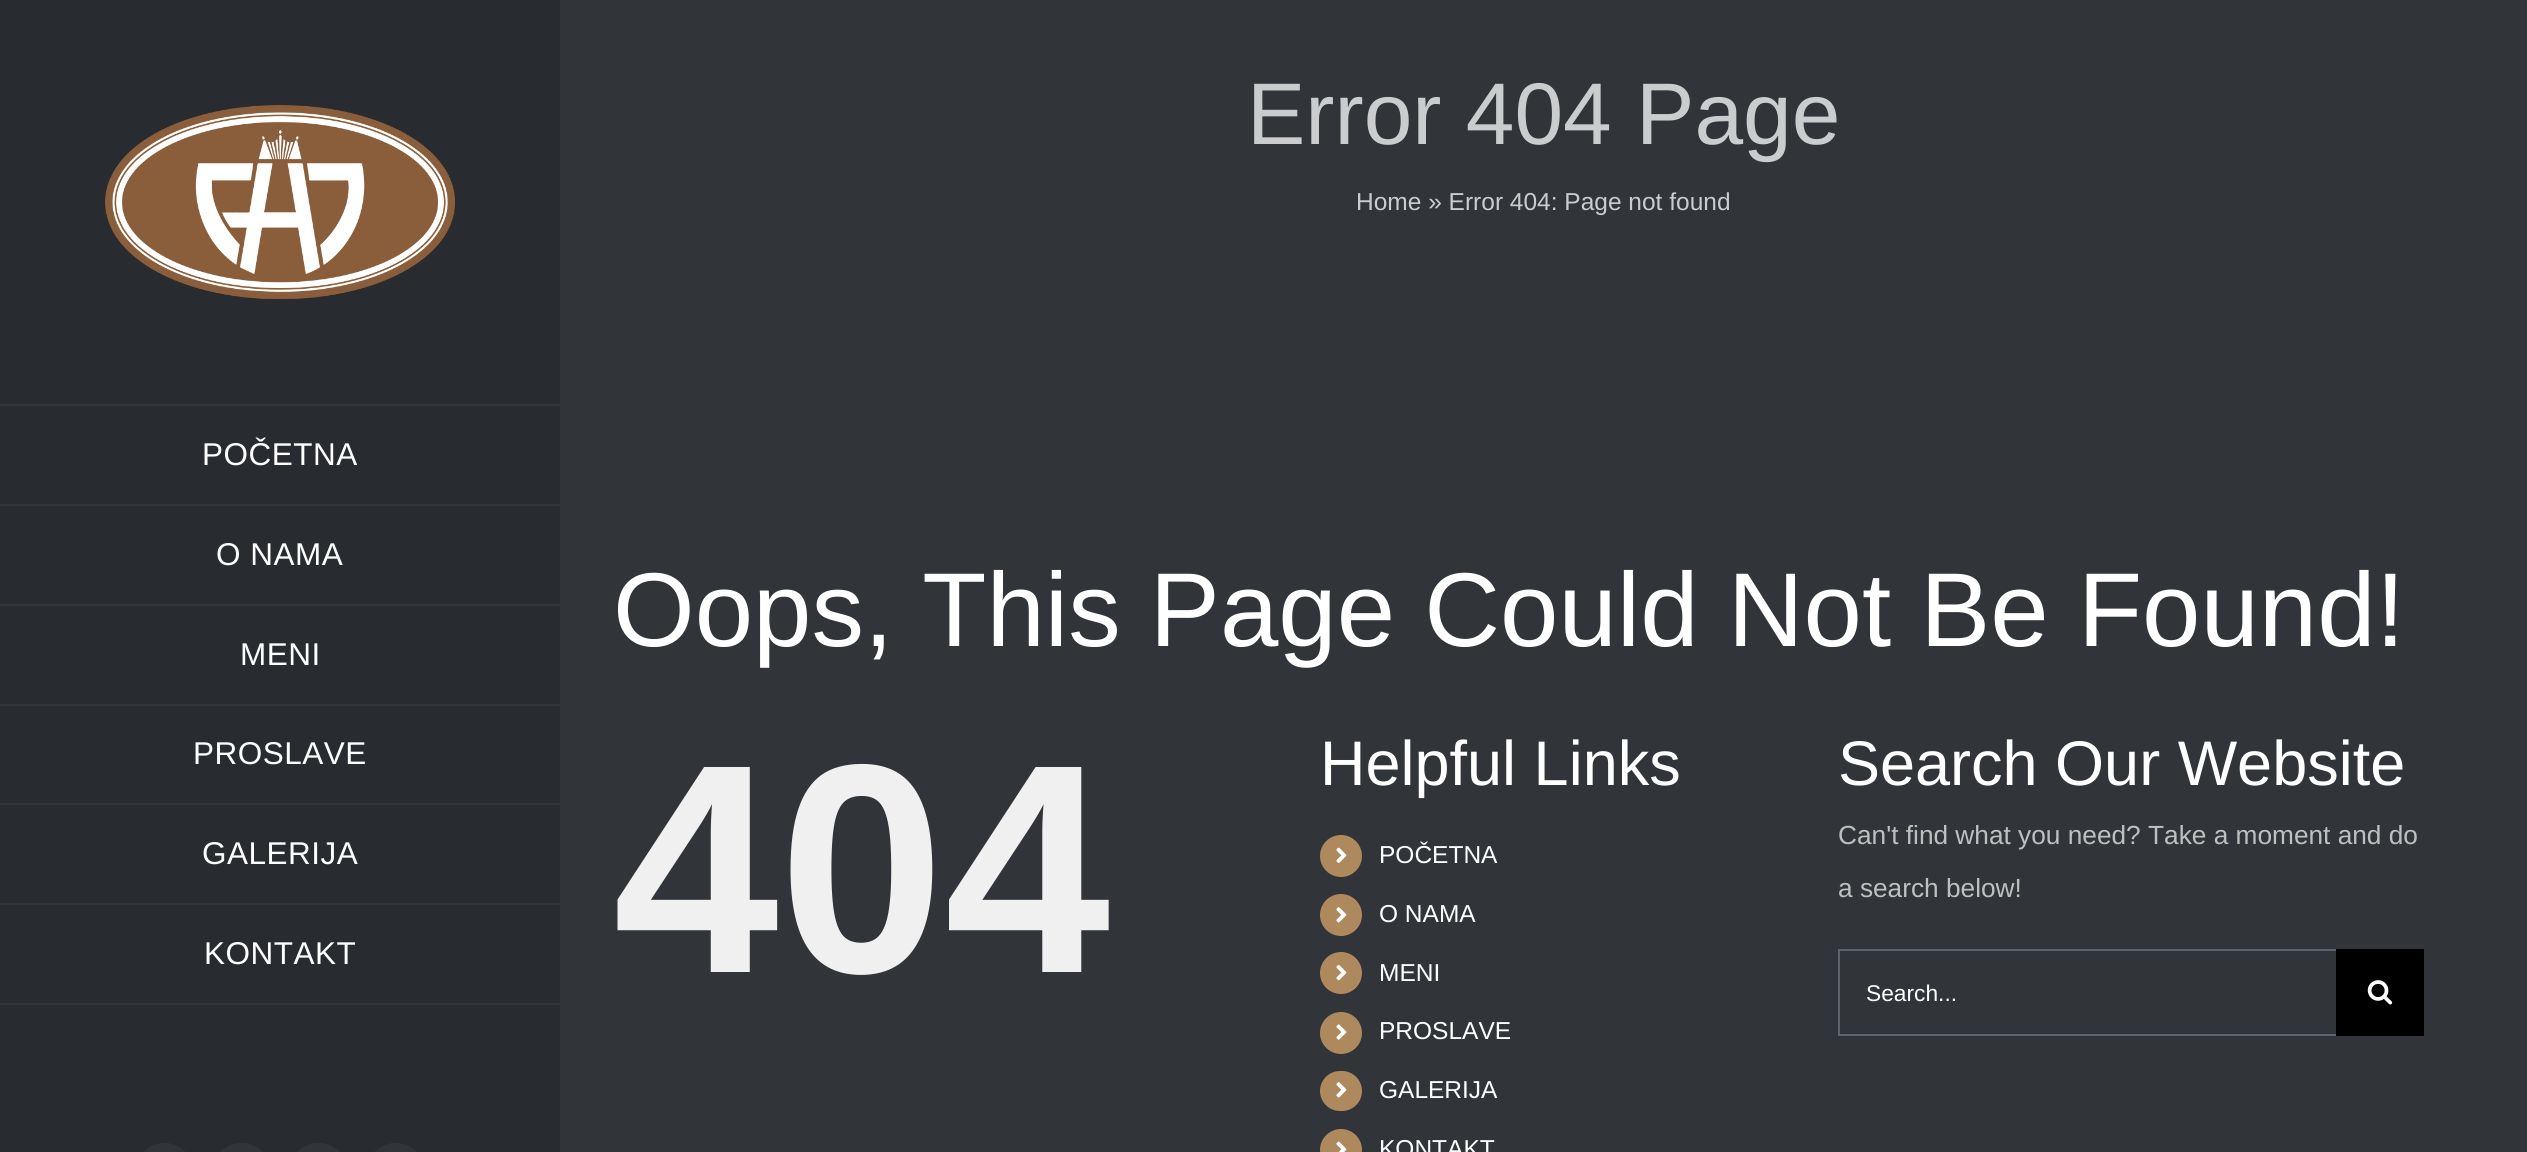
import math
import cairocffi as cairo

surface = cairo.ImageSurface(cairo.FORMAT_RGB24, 2527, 1152)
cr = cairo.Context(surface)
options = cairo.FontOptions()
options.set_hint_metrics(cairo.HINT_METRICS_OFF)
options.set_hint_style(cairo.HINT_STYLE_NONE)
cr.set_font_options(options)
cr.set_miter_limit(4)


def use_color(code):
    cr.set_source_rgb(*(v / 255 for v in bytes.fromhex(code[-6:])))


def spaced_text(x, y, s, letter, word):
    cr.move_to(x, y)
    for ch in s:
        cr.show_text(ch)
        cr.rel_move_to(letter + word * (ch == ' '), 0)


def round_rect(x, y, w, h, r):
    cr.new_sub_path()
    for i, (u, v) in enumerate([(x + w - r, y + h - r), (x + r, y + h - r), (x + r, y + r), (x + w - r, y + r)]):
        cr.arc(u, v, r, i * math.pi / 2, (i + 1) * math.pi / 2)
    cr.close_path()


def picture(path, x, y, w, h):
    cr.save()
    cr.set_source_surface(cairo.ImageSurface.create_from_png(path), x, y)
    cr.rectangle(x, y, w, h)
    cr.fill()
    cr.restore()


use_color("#313539")
cr.paint()
cr.select_font_face("Liberation Sans")
cr.set_font_size(87.5)
use_color("#cbcccd")
cr.move_to(1247, 144)
cr.show_text("Error 404 Page")
cr.set_font_size(24.5)
cr.move_to(1356, 210)
cr.show_text("Home » Error 404: Page not found")
use_color("#282b2f")
cr.rectangle(0, 0, 560, 1152)
cr.fill()
use_color("#313539")
cr.rectangle(0, 404, 560, 2)
cr.fill()
picture("img1.png", 105, 105, 350, 194)
cr.set_font_size(31.5)
use_color("#ffffff")
spaced_text(202, 465, "POČETNA", 0.5, 0)
use_color("#313539")
cr.rectangle(0, 504, 560, 2)
cr.fill()
use_color("#ffffff")
spaced_text(216, 565, "O NAMA", 0.5, 0)
use_color("#313539")
cr.rectangle(0, 604, 560, 2)
cr.fill()
use_color("#ffffff")
spaced_text(240, 665, "MENI", 0.5, 0)
use_color("#313539")
cr.rectangle(0, 704, 560, 2)
cr.fill()
use_color("#ffffff")
spaced_text(193, 764, "PROSLAVE", 0.5, 0)
use_color("#313539")
cr.rectangle(0, 803, 560, 2)
cr.fill()
use_color("#ffffff")
spaced_text(202, 864, "GALERIJA", 0.5, 0)
use_color("#313539")
cr.rectangle(0, 903, 560, 2)
cr.fill()
use_color("#ffffff")
spaced_text(204, 964, "KONTAKT", 0.5, 0)
use_color("#313539")
cr.rectangle(0, 1003, 560, 2)
cr.fill()
round_rect(135, 1143, 59, 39, 29.5)
cr.fill()
round_rect(212, 1143, 59, 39, 29.5)
cr.fill()
round_rect(289, 1143, 59, 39, 29.5)
cr.fill()
round_rect(366, 1143, 59, 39, 29.5)
cr.fill()
cr.set_font_size(105)
use_color("#ffffff")
cr.move_to(613, 646)
cr.show_text("Oops, This Page Could Not Be Found!")
cr.select_font_face("Liberation Sans", cairo.FONT_SLANT_NORMAL, cairo.FONT_WEIGHT_BOLD)
cr.set_font_size(298)
use_color("#f0f0f0")
cr.move_to(613, 972)
cr.show_text("404")
cr.select_font_face("Liberation Sans")
cr.set_font_size(63)
use_color("#ffffff")
cr.move_to(1320, 785)
cr.show_text("Helpful Links")
use_color("#ae895d")
cr.new_path()
cr.arc(1341, 856, 21, 0, 2 * math.pi)
cr.fill()
picture("img2.png", 1336, 847, 11, 16)
cr.set_font_size(24.5)
use_color("#ffffff")
cr.move_to(1379, 863)
cr.show_text("POČETNA")
use_color("#ae895d")
cr.new_path()
cr.arc(1341, 915, 21, 0, 2 * math.pi)
cr.fill()
picture("img3.png", 1336, 907, 11, 16)
use_color("#ffffff")
cr.move_to(1379, 922)
cr.show_text("O NAMA")
use_color("#ae895d")
cr.new_path()
cr.arc(1341, 973, 21, 0, 2 * math.pi)
cr.fill()
picture("img4.png", 1336, 964, 11, 17)
use_color("#ffffff")
cr.move_to(1379, 981)
cr.show_text("MENI")
use_color("#ae895d")
cr.new_path()
cr.arc(1341, 1033, 21, 0, 2 * math.pi)
cr.fill()
picture("img5.png", 1336, 1024, 11, 16)
use_color("#ffffff")
cr.move_to(1379, 1039)
cr.show_text("PROSLAVE")
use_color("#ae895d")
round_rect(1320, 1071, 42, 40, 20)
cr.fill()
picture("img3.png", 1336, 1082, 11, 16)
use_color("#ffffff")
cr.move_to(1379, 1098)
cr.show_text("GALERIJA")
use_color("#ae895d")
cr.new_path()
cr.arc(1341, 1150, 21, 0, 2 * math.pi)
cr.fill()
picture("img6.png", 1336, 1141, 11, 11)
use_color("#ffffff")
cr.move_to(1379, 1157)
cr.show_text("KONTAKT")
cr.set_font_size(63)
cr.move_to(1838, 785)
cr.show_text("Search Our Website")
cr.set_font_size(26.25)
use_color("#bfbfbf")
cr.move_to(1838, 844)
cr.show_text("Can't find what you need? Take a moment and do")
cr.move_to(1838, 897)
cr.show_text("a search below!")
use_color("#5d646b")
cr.rectangle(1838, 949, 498, 2)
cr.fill()
cr.rectangle(1838, 1034, 498, 2)
cr.fill()
cr.rectangle(1838, 949, 2, 87)
cr.fill()
cr.set_font_size(22.75)
use_color("#ffffff")
cr.move_to(1866, 1001)
cr.show_text("Search...")
use_color("#000000")
cr.rectangle(2336, 949, 88, 87)
cr.fill()
picture("img7.png", 2367, 980, 26, 25)
surface.write_to_png("result.png")
